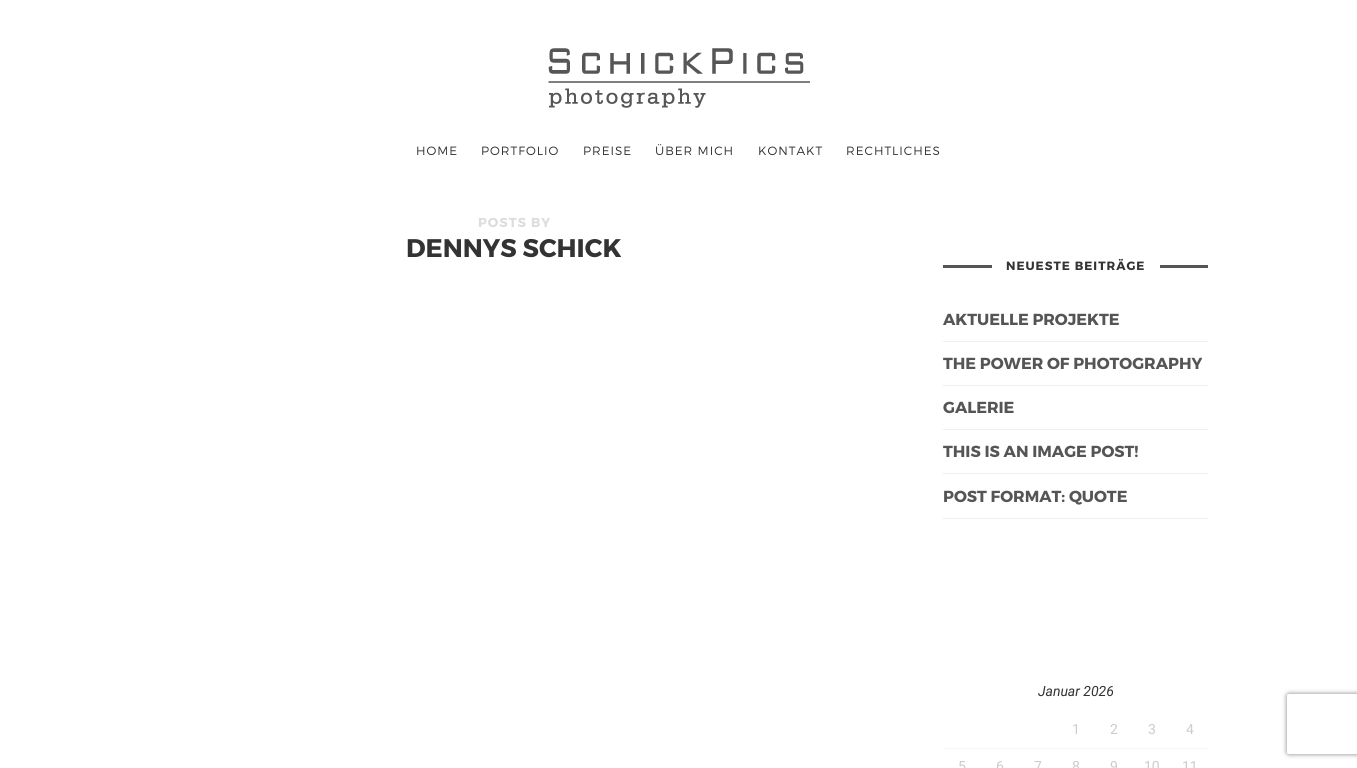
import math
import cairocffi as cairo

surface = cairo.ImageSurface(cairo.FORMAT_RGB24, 1357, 768)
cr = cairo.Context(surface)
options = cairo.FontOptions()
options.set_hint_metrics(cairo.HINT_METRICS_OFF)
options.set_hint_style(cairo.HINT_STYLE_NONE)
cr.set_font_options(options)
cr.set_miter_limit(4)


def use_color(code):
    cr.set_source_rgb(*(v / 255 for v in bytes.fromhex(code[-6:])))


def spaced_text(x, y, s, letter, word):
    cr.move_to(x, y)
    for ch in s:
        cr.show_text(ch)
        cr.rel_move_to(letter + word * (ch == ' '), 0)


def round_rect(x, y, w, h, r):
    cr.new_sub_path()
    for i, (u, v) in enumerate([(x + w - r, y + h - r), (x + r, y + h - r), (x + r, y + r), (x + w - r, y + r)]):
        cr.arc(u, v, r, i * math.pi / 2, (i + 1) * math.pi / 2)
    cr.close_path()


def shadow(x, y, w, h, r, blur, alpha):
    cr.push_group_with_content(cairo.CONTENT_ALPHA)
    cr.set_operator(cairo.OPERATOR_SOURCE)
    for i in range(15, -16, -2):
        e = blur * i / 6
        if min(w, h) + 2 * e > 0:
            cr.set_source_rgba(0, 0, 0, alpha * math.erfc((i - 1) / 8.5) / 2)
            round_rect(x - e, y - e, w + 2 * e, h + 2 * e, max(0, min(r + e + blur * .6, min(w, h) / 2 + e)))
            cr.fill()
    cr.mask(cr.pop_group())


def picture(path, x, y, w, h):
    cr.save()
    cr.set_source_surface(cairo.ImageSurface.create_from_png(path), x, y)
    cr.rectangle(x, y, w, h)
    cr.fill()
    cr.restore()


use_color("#ffffff")
cr.paint()
picture("img1.png", 548, 48, 262, 60)
cr.select_font_face("Montserrat Light")
cr.set_font_size(12)
use_color("#333333")
spaced_text(416, 155, "HOME", 1, 0)
spaced_text(481, 155, "PORTFOLIO", 1, 0)
spaced_text(583, 155, "PREISE", 1, 0)
spaced_text(655, 155, "ÜBER MICH", 1, 0)
spaced_text(758, 155, "KONTAKT", 1, 0)
spaced_text(846, 155, "RECHTLICHES", 1, 0)
cr.select_font_face("Montserrat", cairo.FONT_SLANT_NORMAL, cairo.FONT_WEIGHT_BOLD)
cr.set_font_size(13)
use_color("#dddddd")
spaced_text(478, 227, "POSTS BY", 1, 0)
cr.set_font_size(25.5)
use_color("#333333")
cr.move_to(406, 257)
cr.show_text("DENNYS SCHICK")
use_color("#555555")
cr.rectangle(943, 265, 265, 3)
cr.fill()
use_color("#ffffff")
cr.rectangle(992, 265, 168, 3)
cr.fill()
cr.set_font_size(12)
use_color("#333333")
spaced_text(1006, 270, "NEUESTE BEITRÄGE", 1, 0)
use_color("#eeeeee")
cr.rectangle(943, 341, 265, 1)
cr.fill()
cr.set_font_size(16)
use_color("#555555")
cr.move_to(943, 325)
cr.show_text("AKTUELLE PROJEKTE")
use_color("#eeeeee")
cr.rectangle(943, 385, 265, 1)
cr.fill()
use_color("#555555")
cr.move_to(943, 369)
cr.show_text("THE POWER OF PHOTOGRAPHY")
use_color("#eeeeee")
cr.rectangle(943, 429, 265, 1)
cr.fill()
use_color("#555555")
cr.move_to(943, 413)
cr.show_text("GALERIE")
use_color("#eeeeee")
cr.rectangle(943, 473, 265, 1)
cr.fill()
use_color("#555555")
cr.move_to(943, 457)
cr.show_text("THIS IS AN IMAGE POST!")
use_color("#eeeeee")
cr.rectangle(943, 518, 265, 1)
cr.fill()
use_color("#555555")
cr.move_to(943, 502)
cr.show_text("POST FORMAT: QUOTE")
cr.select_font_face("Roboto", cairo.FONT_SLANT_ITALIC)
cr.set_font_size(14)
use_color("#333333")
cr.move_to(1038, 696)
cr.show_text("Januar 2026")
cr.select_font_face("Roboto")
use_color("#cccccc")
cr.move_to(1072, 734)
cr.show_text("1")
cr.move_to(1110, 734)
cr.show_text("2")
cr.move_to(1148, 734)
cr.show_text("3")
use_color("#f5f5f5")
cr.rectangle(943, 748, 266, 1)
cr.fill()
use_color("#cccccc")
cr.move_to(1186, 734)
cr.show_text("4")
cr.move_to(958, 771)
cr.show_text("5")
cr.move_to(996, 771)
cr.show_text("6")
cr.move_to(1034, 771)
cr.show_text("7")
cr.move_to(1072, 771)
cr.show_text("8")
cr.move_to(1110, 771)
cr.show_text("9")
cr.move_to(1144, 771)
cr.show_text("10")
cr.move_to(1182, 771)
cr.show_text("11")
cr.save()
cr.set_fill_rule(cairo.FILL_RULE_EVEN_ODD)
cr.new_path()
cr.move_to(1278, 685)
cr.line_to(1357, 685)
cr.line_to(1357, 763)
cr.line_to(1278, 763)
cr.close_path()
cr.move_to(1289, 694)
cr.line_to(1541, 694)
cr.curve_to(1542, 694, 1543, 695, 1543, 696)
cr.line_to(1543, 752)
cr.curve_to(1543, 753, 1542, 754, 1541, 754)
cr.line_to(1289, 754)
cr.curve_to(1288, 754, 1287, 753, 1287, 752)
cr.line_to(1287, 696)
cr.curve_to(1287, 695, 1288, 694, 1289, 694)
cr.close_path()
cr.clip()
use_color("#808080")
shadow(1287, 694, 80, 60, 2, 2.5, 1)
cr.restore()
surface.write_to_png("result.png")
